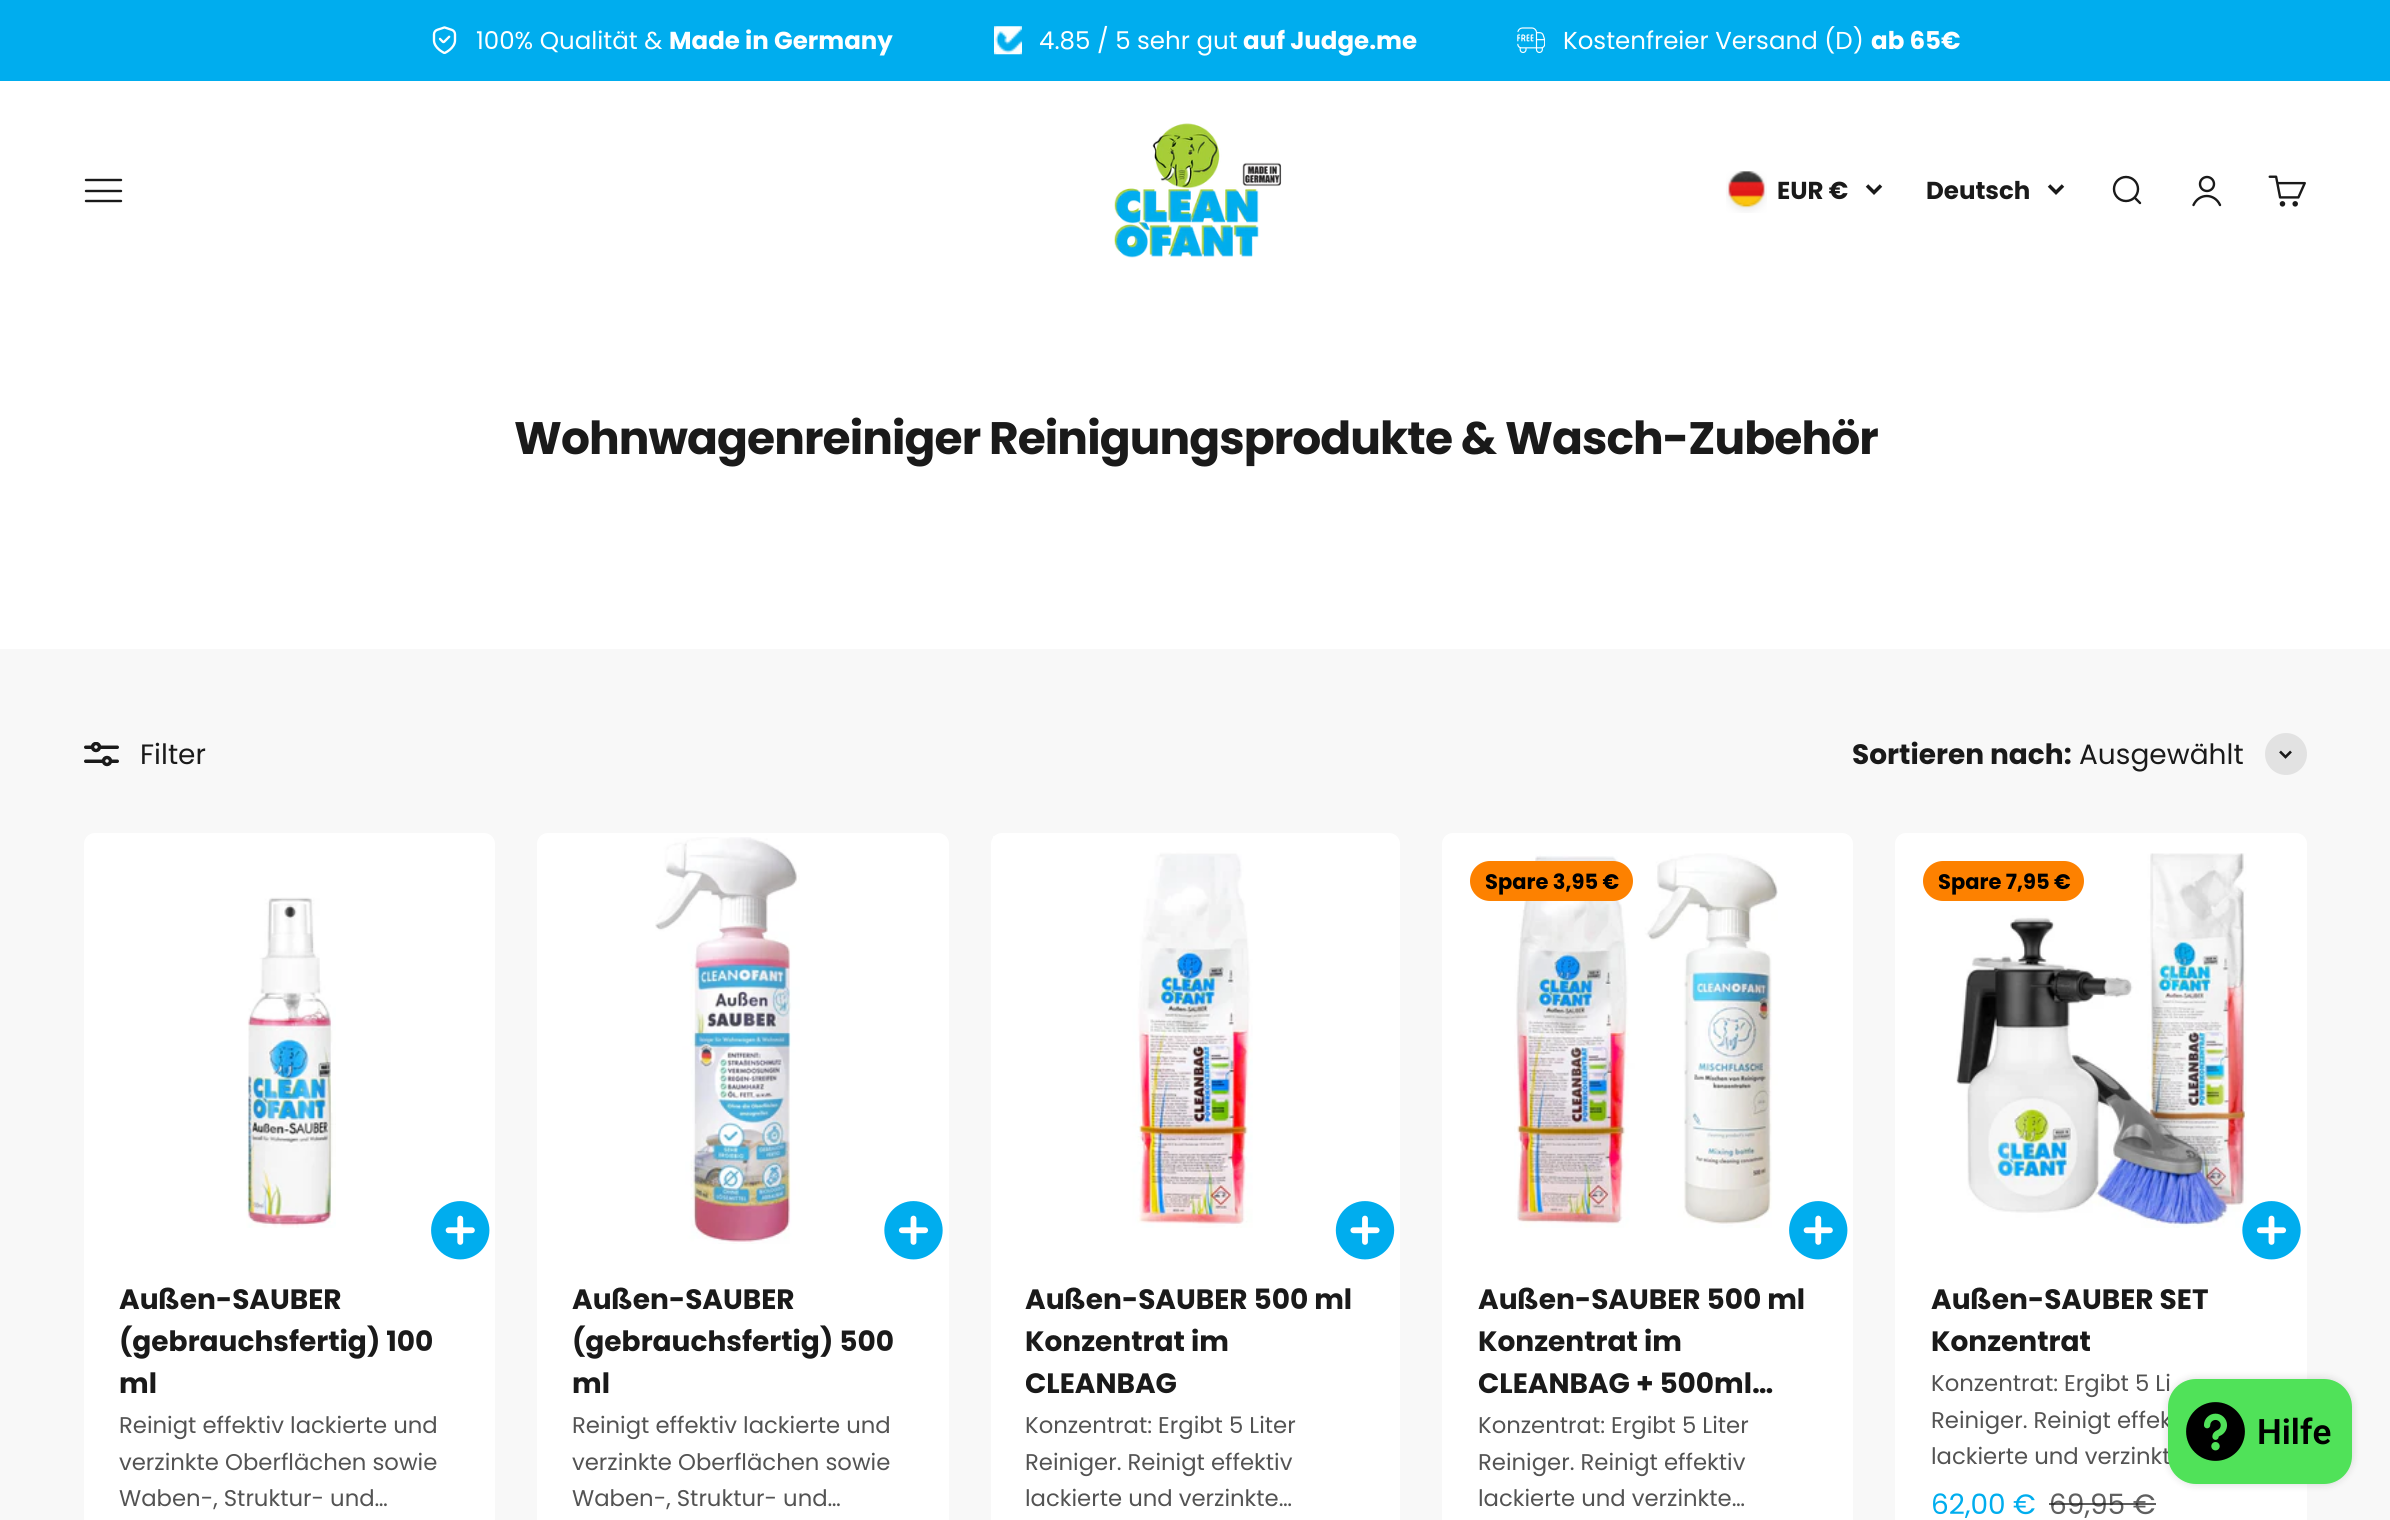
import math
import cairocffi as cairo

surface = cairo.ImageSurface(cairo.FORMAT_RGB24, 2390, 1520)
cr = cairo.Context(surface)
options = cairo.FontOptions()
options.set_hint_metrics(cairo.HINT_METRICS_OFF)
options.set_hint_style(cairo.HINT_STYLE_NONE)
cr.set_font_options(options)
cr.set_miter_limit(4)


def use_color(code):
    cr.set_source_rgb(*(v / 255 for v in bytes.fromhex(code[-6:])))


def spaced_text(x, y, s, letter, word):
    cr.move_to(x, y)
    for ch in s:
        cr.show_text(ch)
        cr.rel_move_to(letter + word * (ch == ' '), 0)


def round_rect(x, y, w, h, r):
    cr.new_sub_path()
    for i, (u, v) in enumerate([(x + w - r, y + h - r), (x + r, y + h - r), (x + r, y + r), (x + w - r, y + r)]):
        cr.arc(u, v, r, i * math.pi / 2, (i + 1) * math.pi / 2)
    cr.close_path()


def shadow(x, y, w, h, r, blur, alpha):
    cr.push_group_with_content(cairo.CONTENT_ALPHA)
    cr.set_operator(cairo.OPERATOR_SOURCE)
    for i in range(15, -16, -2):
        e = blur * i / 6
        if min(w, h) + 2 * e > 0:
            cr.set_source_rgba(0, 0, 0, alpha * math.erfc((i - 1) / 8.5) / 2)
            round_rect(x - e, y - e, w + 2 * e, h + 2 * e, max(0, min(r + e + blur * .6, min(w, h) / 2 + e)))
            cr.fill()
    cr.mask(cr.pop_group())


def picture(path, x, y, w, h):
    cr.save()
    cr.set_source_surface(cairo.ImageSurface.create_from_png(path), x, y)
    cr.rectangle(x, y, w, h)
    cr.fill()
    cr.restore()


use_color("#ffffff")
cr.paint()
use_color("#00adee")
cr.rectangle(0, 0, 2390, 81)
cr.fill()
picture("img1.png", 432, 26, 25, 28)
cr.select_font_face("Poppins")
cr.set_font_size(24.5)
use_color("#ffffff")
cr.move_to(476, 49)
cr.show_text("100% Qualität &")
cr.select_font_face("Poppins", cairo.FONT_SLANT_NORMAL, cairo.FONT_WEIGHT_BOLD)
cr.move_to(669, 49)
cr.show_text("Made in Germany")
picture("img2.png", 994, 26, 28, 29)
cr.select_font_face("Poppins")
cr.move_to(1039, 49)
cr.show_text("4.85 / 5 sehr gut")
cr.select_font_face("Poppins", cairo.FONT_SLANT_NORMAL, cairo.FONT_WEIGHT_BOLD)
cr.move_to(1243, 49)
cr.show_text("auf Judge.me")
picture("img3.png", 1517, 27, 28, 27)
cr.select_font_face("Poppins")
cr.move_to(1563, 49)
cr.show_text("Kostenfreier Versand (D)")
cr.select_font_face("Poppins", cairo.FONT_SLANT_NORMAL, cairo.FONT_WEIGHT_BOLD)
cr.move_to(1871, 49)
cr.show_text("ab 65€")
cr.new_path()
cr.move_to(86, 180)
cr.line_to(121, 180)
cr.move_to(86, 191)
cr.line_to(121, 191)
cr.move_to(86, 201)
cr.line_to(121, 201)
use_color("#1a1a1a")
cr.set_line_width(2.4)
cr.set_line_cap(cairo.LINE_CAP_ROUND)
cr.stroke()
picture("img4.png", 1114, 123, 168, 135)
picture("img5.png", 1726, 171, 41, 42)
cr.move_to(1777, 199)
cr.show_text("EUR €")
cr.new_path()
cr.move_to(1867, 185.5)
cr.line_to(1874, 192.5)
cr.line_to(1881, 185.5)
cr.set_line_width(3.5)
cr.set_line_cap(cairo.LINE_CAP_BUTT)
cr.stroke()
cr.move_to(1926, 199)
cr.show_text("Deutsch")
cr.new_path()
cr.move_to(2049, 185.5)
cr.line_to(2056, 192.5)
cr.line_to(2063, 185.5)
cr.stroke()
cr.arc(2126, 189, 12, 0, 2 * math.pi)
cr.set_line_width(2.4)
cr.stroke()
cr.new_path()
cr.move_to(2135, 198)
cr.line_to(2140, 203)
cr.set_line_cap(cairo.LINE_CAP_ROUND)
cr.set_line_join(cairo.LINE_JOIN_ROUND)
cr.stroke()
cr.arc(2207, 184, 7, 0, 2 * math.pi)
cr.set_line_cap(cairo.LINE_CAP_BUTT)
cr.set_line_join(cairo.LINE_JOIN_MITER)
cr.stroke()
cr.new_path()
cr.move_to(2193.5, 205)
cr.curve_to(2199, 193, 2214.5, 193, 2220, 205)
cr.set_line_cap(cairo.LINE_CAP_ROUND)
cr.stroke()
picture("img6.png", 2268, 175, 38, 32)
cr.set_font_size(45.5)
spaced_text(514, 454, "Wohnwagenreiniger Reinigungsprodukte & Wasch-Zubehör", -0.9, 0)
use_color("#f8f8f8")
cr.rectangle(0, 649, 2390, 871)
cr.fill()
picture("img7.png", 84, 742, 35, 25)
cr.select_font_face("Poppins")
cr.set_font_size(28)
use_color("#1a1a1a")
cr.move_to(140, 764)
cr.show_text("Filter")
cr.select_font_face("Poppins", cairo.FONT_SLANT_NORMAL, cairo.FONT_WEIGHT_BOLD)
cr.move_to(1852, 764)
cr.show_text("Sortieren nach:")
cr.select_font_face("Poppins")
cr.move_to(2079, 764)
cr.show_text("Ausgewählt")
use_color("#e2e2e2")
cr.new_path()
cr.arc(2286, 754, 21, 0, 2 * math.pi)
cr.fill()
cr.new_path()
cr.move_to(2280, 751.5)
cr.line_to(2285.5, 757)
cr.line_to(2291, 751.5)
use_color("#1a1a1a")
cr.set_line_width(2.6)
cr.set_line_cap(cairo.LINE_CAP_BUTT)
cr.stroke()
use_color("#ffffff")
round_rect(84, 833, 411, 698, 11)
cr.fill()
picture("img8.png", 246, 897, 90, 331)
picture("img9.png", 431, 1201, 59, 59)
cr.select_font_face("Poppins", cairo.FONT_SLANT_NORMAL, cairo.FONT_WEIGHT_BOLD)
use_color("#1a1a1a")
cr.move_to(119, 1309)
cr.show_text("Außen-SAUBER")
cr.move_to(119, 1351)
cr.show_text("(gebrauchsfertig) 100")
cr.move_to(119, 1393)
cr.show_text("ml")
cr.select_font_face("Poppins")
cr.set_font_size(22.75)
use_color("#535353")
cr.move_to(119, 1433)
cr.show_text("Reinigt effektiv lackierte und")
cr.move_to(119, 1470)
cr.show_text("verzinkte Oberflächen sowie")
cr.move_to(119, 1506)
cr.show_text("Waben-, Struktur- und…")
use_color("#ffffff")
round_rect(537, 833, 412, 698, 11)
cr.fill()
picture("img10.png", 655, 837, 145, 407)
picture("img11.png", 884, 1201, 59, 59)
cr.select_font_face("Poppins", cairo.FONT_SLANT_NORMAL, cairo.FONT_WEIGHT_BOLD)
cr.set_font_size(28)
use_color("#1a1a1a")
cr.move_to(572, 1309)
cr.show_text("Außen-SAUBER")
cr.move_to(572, 1351)
cr.show_text("(gebrauchsfertig) 500")
cr.move_to(572, 1393)
cr.show_text("ml")
cr.select_font_face("Poppins")
cr.set_font_size(22.75)
use_color("#535353")
cr.move_to(572, 1433)
cr.show_text("Reinigt effektiv lackierte und")
cr.move_to(572, 1470)
cr.show_text("verzinkte Oberflächen sowie")
cr.move_to(572, 1506)
cr.show_text("Waben-, Struktur- und…")
use_color("#ffffff")
round_rect(991, 833, 409, 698, 11)
cr.fill()
picture("img12.png", 993, 836, 260, 392)
picture("img13.png", 1335, 1201, 60, 59)
cr.select_font_face("Poppins", cairo.FONT_SLANT_NORMAL, cairo.FONT_WEIGHT_BOLD)
cr.set_font_size(28)
use_color("#1a1a1a")
cr.move_to(1025, 1309)
cr.show_text("Außen-SAUBER 500 ml")
cr.move_to(1025, 1351)
cr.show_text("Konzentrat im")
cr.save()
cr.rectangle(1026, 1279, 339, 126)
cr.clip()
cr.move_to(1025, 1393)
cr.show_text("CLEANBAG")
cr.restore()
cr.select_font_face("Poppins")
cr.set_font_size(22.75)
use_color("#535353")
cr.move_to(1025, 1433)
cr.show_text("Konzentrat: Ergibt 5 Liter")
cr.move_to(1025, 1470)
cr.show_text("Reiniger. Reinigt effektiv")
cr.move_to(1025, 1506)
cr.show_text("lackierte und verzinkte…")
use_color("#ffffff")
round_rect(1442, 833, 411, 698, 11)
cr.fill()
picture("img14.png", 1514, 853, 264, 375)
picture("img9.png", 1789, 1201, 59, 59)
use_color("#fd8100")
round_rect(1470, 861, 163, 40, 20)
cr.fill()
cr.select_font_face("Poppins", cairo.FONT_SLANT_NORMAL, cairo.FONT_WEIGHT_BOLD)
cr.set_font_size(21)
use_color("#000000")
cr.move_to(1485, 889)
cr.show_text("Spare 3,95 €")
cr.set_font_size(28)
use_color("#1a1a1a")
cr.move_to(1478, 1309)
cr.show_text("Außen-SAUBER 500 ml")
cr.move_to(1478, 1351)
cr.show_text("Konzentrat im")
cr.move_to(1478, 1393)
cr.show_text("CLEANBAG + 500ml…")
cr.select_font_face("Poppins")
cr.set_font_size(22.75)
use_color("#535353")
cr.move_to(1478, 1433)
cr.show_text("Konzentrat: Ergibt 5 Liter")
cr.move_to(1478, 1470)
cr.show_text("Reiniger. Reinigt effektiv")
cr.move_to(1478, 1506)
cr.show_text("lackierte und verzinkte…")
use_color("#ffffff")
round_rect(1895, 833, 412, 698, 11)
cr.fill()
picture("img15.png", 1956, 853, 291, 375)
picture("img16.png", 2242, 1201, 59, 59)
use_color("#fd8100")
round_rect(1923, 861, 161, 40, 20)
cr.fill()
cr.select_font_face("Poppins", cairo.FONT_SLANT_NORMAL, cairo.FONT_WEIGHT_BOLD)
cr.set_font_size(21)
use_color("#000000")
cr.move_to(1938, 889)
cr.show_text("Spare 7,95 €")
cr.set_font_size(28)
use_color("#1a1a1a")
cr.move_to(1931, 1309)
cr.show_text("Außen-SAUBER SET")
cr.move_to(1931, 1351)
cr.show_text("Konzentrat")
cr.select_font_face("Poppins")
cr.set_font_size(22.75)
use_color("#535353")
cr.move_to(1931, 1391)
cr.show_text("Konzentrat: Ergibt 5 Li")
cr.move_to(1931, 1428)
cr.show_text("Reiniger. Reinigt effek")
cr.move_to(1931, 1464)
cr.show_text("lackierte und verzinkt")
cr.set_font_size(28)
use_color("#00adee")
cr.move_to(1931, 1514)
cr.show_text("62,00 €")
use_color("#5f5f5f")
cr.move_to(2049, 1514)
cr.show_text("69,95 €")
cr.set_source_rgba(0.102, 0.102, 0.102, 0.7)
cr.rectangle(2049, 1503, 107, 2)
cr.fill()
use_color("#000000")
shadow(2168, 1379, 184, 105, 28, 4.5, 0.15)
use_color("#50e259")
round_rect(2168, 1379, 184, 105, 28)
cr.fill()
picture("img17.png", 2186, 1402, 59, 59)
cr.select_font_face("Roboto SemiBold")
cr.set_font_size(35)
use_color("#000000")
cr.move_to(2257, 1444)
cr.show_text("Hilfe")
surface.write_to_png("result.png")
